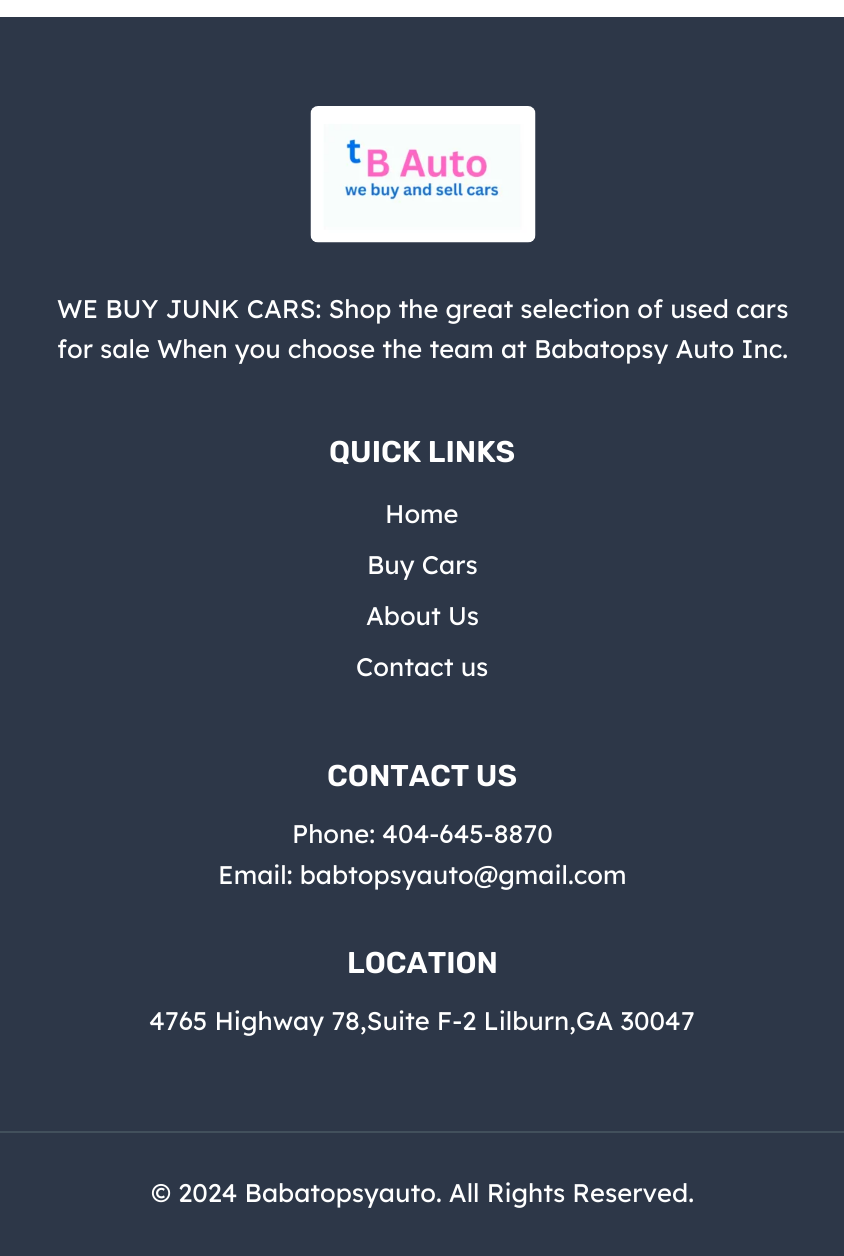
import math
import cairocffi as cairo

surface = cairo.ImageSurface(cairo.FORMAT_RGB24, 844, 1256)
cr = cairo.Context(surface)
options = cairo.FontOptions()
options.set_hint_metrics(cairo.HINT_METRICS_OFF)
options.set_hint_style(cairo.HINT_STYLE_NONE)
cr.set_font_options(options)
cr.set_miter_limit(4)


def use_color(code):
    cr.set_source_rgb(*(v / 255 for v in bytes.fromhex(code[-6:])))


def picture(path, x, y, w, h):
    cr.save()
    cr.set_source_surface(cairo.ImageSurface.create_from_png(path), x, y)
    cr.rectangle(x, y, w, h)
    cr.fill()
    cr.restore()


use_color("#ffffff")
cr.paint()
use_color("#2d3748")
cr.rectangle(0, 17, 844, 1239)
cr.fill()
picture("img1.png", 310, 106, 226, 137)
cr.select_font_face("Lexend")
cr.set_font_size(25.5)
use_color("#ffffff")
cr.move_to(57, 318)
cr.show_text("WE BUY JUNK CARS: Shop the great selection of used cars")
cr.move_to(57, 358)
cr.show_text("for sale When you choose the team at Babatopsy Auto Inc.")
cr.select_font_face("Rubik SemiBold")
cr.set_font_size(30)
cr.move_to(329, 462)
cr.show_text("QUICK LINKS")
cr.select_font_face("Lexend")
cr.set_font_size(25.5)
cr.move_to(385, 523)
cr.show_text("Home")
cr.move_to(367, 574)
cr.show_text("Buy Cars")
cr.move_to(366, 625)
cr.show_text("About Us")
cr.move_to(356, 676)
cr.show_text("Contact us")
cr.select_font_face("Rubik SemiBold")
cr.set_font_size(30)
cr.move_to(327, 786)
cr.show_text("CONTACT US")
cr.select_font_face("Lexend")
cr.set_font_size(25.5)
cr.move_to(292, 843)
cr.show_text("Phone: 404-645-8870")
cr.move_to(218, 884)
cr.show_text("Email: babtopsyauto@gmail.com")
cr.select_font_face("Rubik SemiBold")
cr.set_font_size(30)
cr.move_to(347, 973)
cr.show_text("LOCATION")
cr.select_font_face("Lexend")
cr.set_font_size(25.5)
cr.move_to(149, 1030)
cr.show_text("4765 Highway 78,Suite F-2 Lilburn,GA 30047")
use_color("#42505c")
cr.rectangle(0, 1131, 844, 2)
cr.fill()
use_color("#ffffff")
cr.move_to(151, 1202)
cr.show_text("© 2024 Babatopsyauto. All Rights Reserved.")
surface.write_to_png("result.png")
